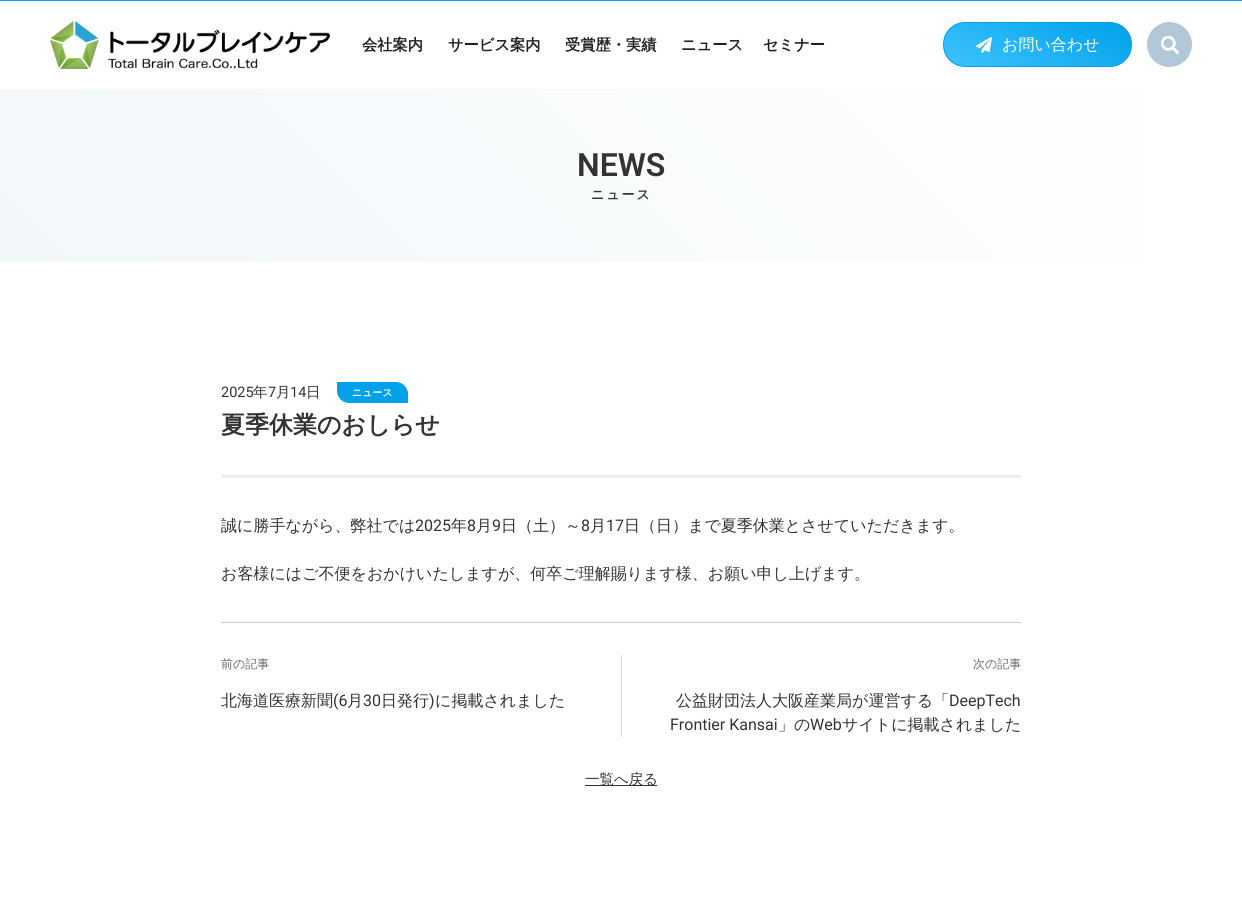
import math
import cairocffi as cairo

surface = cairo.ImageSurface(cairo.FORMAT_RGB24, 1242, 916)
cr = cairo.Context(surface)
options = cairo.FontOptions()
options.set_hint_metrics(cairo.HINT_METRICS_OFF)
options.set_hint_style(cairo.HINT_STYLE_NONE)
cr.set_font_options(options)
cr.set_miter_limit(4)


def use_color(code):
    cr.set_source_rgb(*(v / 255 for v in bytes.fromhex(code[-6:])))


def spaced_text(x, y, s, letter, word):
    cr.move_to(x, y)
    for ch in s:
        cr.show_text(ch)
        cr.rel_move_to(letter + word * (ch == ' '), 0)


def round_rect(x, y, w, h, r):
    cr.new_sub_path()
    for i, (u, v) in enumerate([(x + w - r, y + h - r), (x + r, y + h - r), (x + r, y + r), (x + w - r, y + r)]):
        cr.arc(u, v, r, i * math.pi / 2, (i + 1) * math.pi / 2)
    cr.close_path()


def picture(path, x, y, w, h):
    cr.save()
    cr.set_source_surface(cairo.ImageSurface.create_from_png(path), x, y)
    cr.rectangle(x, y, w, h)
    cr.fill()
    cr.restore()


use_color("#ffffff")
cr.paint()
use_color("#00a1e9")
cr.rectangle(0, 0, 1242, 1)
cr.fill()
picture("img1.png", 50, 21, 280, 48)
cr.select_font_face("WenQuanYi Zen Hei", cairo.FONT_SLANT_NORMAL, cairo.FONT_WEIGHT_BOLD)
cr.set_font_size(15.25)
use_color("#1f2124")
cr.move_to(362, 50)
cr.show_text("会社案内")
cr.move_to(448, 50)
cr.show_text("サービス案内")
cr.move_to(565, 50)
cr.show_text("受賞歴・実績")
cr.move_to(681, 50)
cr.show_text("ニュース")
cr.move_to(763, 50)
cr.show_text("セミナー")
cr.save()
round_rect(943, 22, 189, 45, 22.5)
cr.clip()
gradient = cairo.LinearGradient(1010, 99, 1065, -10)
gradient.add_color_stop_rgba(0, 0.243, 0.765, 1, 1)
gradient.add_color_stop_rgba(1, 0, 0.631, 0.914, 1)
cr.set_source(gradient)
cr.rectangle(944, 23, 187, 43)
cr.fill()
cr.restore()
round_rect(943.5, 22.5, 188, 44, 22)
use_color("#00a1e9")
cr.set_line_width(1)
cr.stroke()
picture("img2.png", 976, 37, 16, 16)
cr.select_font_face("WenQuanYi Zen Hei Medium")
cr.set_font_size(16)
use_color("#ffffff")
cr.move_to(1002, 50)
cr.show_text("お問い合わせ")
use_color("#b2c7d7")
cr.new_path()
cr.arc(1169.5, 44.5, 22.5, 0, 2 * math.pi)
cr.fill()
picture("img3.png", 1161, 36, 18, 18)
gradient = cairo.LinearGradient(267, 529, 975, -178)
gradient.add_color_stop_rgba(0, 0.949, 0.969, 0.98, 1)
gradient.add_color_stop_rgba(1, 1, 1, 1, 1)
cr.set_source(gradient)
cr.rectangle(0, 89, 1142, 173)
cr.fill()
cr.select_font_face("Roboto SemiBold")
cr.set_font_size(32)
use_color("#333333")
cr.move_to(577, 176)
cr.show_text("NEWS")
cr.select_font_face("WenQuanYi Zen Hei", cairo.FONT_SLANT_NORMAL, cairo.FONT_WEIGHT_BOLD)
cr.set_font_size(13)
spaced_text(591, 199, "ニュース", 2, 0)
cr.select_font_face("Roboto")
cr.set_font_size(14.5)
cr.move_to(221, 397)
cr.show_text("2025")
cr.select_font_face("WenQuanYi Zen Hei Medium")
cr.move_to(253, 397)
cr.show_text("年")
cr.select_font_face("Roboto")
cr.move_to(268, 397)
cr.show_text("7")
cr.select_font_face("WenQuanYi Zen Hei Medium")
cr.move_to(276, 397)
cr.show_text("月")
cr.select_font_face("Roboto")
cr.move_to(290, 397)
cr.show_text("14")
cr.select_font_face("WenQuanYi Zen Hei Medium")
cr.move_to(306, 397)
cr.show_text("日")
use_color("#00a1e9")
cr.new_path()
cr.move_to(337, 382)
cr.line_to(396, 382)
cr.curve_to(402.5, 382, 408, 387.5, 408, 394)
cr.line_to(408, 403)
cr.line_to(349, 403)
cr.curve_to(342.5, 403, 337, 397.5, 337, 391)
cr.close_path()
cr.fill()
cr.select_font_face("WenQuanYi Zen Hei", cairo.FONT_SLANT_NORMAL, cairo.FONT_WEIGHT_BOLD)
cr.set_font_size(10)
use_color("#ffffff")
cr.move_to(352, 396)
cr.show_text("ニュース")
use_color("#eeeeee")
cr.rectangle(221, 475, 800, 3)
cr.fill()
cr.set_font_size(24)
use_color("#333333")
cr.move_to(221, 433)
cr.show_text("夏季休業のおしらせ")
cr.select_font_face("WenQuanYi Zen Hei Medium")
cr.set_font_size(16)
cr.move_to(221, 531)
cr.show_text("誠に勝手ながら、弊社では")
cr.select_font_face("Roboto")
cr.move_to(415, 531)
cr.show_text("2025")
cr.select_font_face("WenQuanYi Zen Hei Medium")
cr.move_to(451, 531)
cr.show_text("年")
cr.select_font_face("Roboto")
cr.move_to(467, 531)
cr.show_text("8")
cr.select_font_face("WenQuanYi Zen Hei Medium")
cr.move_to(476, 531)
cr.show_text("月")
cr.select_font_face("Roboto")
cr.move_to(492, 531)
cr.show_text("9")
cr.select_font_face("WenQuanYi Zen Hei Medium")
cr.move_to(501, 531)
cr.show_text("日（土）～")
cr.select_font_face("Roboto")
cr.move_to(581, 531)
cr.show_text("8")
cr.select_font_face("WenQuanYi Zen Hei Medium")
cr.move_to(590, 531)
cr.show_text("月")
cr.select_font_face("Roboto")
cr.move_to(606, 531)
cr.show_text("17")
cr.select_font_face("WenQuanYi Zen Hei Medium")
cr.move_to(624, 531)
cr.show_text("日（日）まで夏季休業とさせていただきます。")
cr.move_to(221, 579)
cr.show_text("お客様にはご不便をおかけいたしますが、何卒ご理解賜ります様、お願い申し上げます。")
use_color("#cccccc")
cr.rectangle(221, 622, 800, 1)
cr.fill()
cr.set_font_size(12)
use_color("#666666")
cr.move_to(221, 668)
cr.show_text("前の記事")
cr.set_font_size(16)
use_color("#333333")
cr.move_to(221, 706)
cr.show_text("北海道医療新聞")
cr.select_font_face("Roboto")
cr.move_to(333, 706)
cr.show_text("(6")
cr.select_font_face("WenQuanYi Zen Hei Medium")
cr.move_to(347, 706)
cr.show_text("月")
cr.select_font_face("Roboto")
cr.move_to(363, 706)
cr.show_text("30")
cr.select_font_face("WenQuanYi Zen Hei Medium")
cr.move_to(381, 706)
cr.show_text("日発行")
cr.select_font_face("Roboto")
cr.move_to(429, 706)
cr.show_text(")")
cr.select_font_face("WenQuanYi Zen Hei Medium")
cr.move_to(435, 706)
cr.show_text("に掲載されました")
use_color("#d5d8dc")
cr.rectangle(621, 655, 1, 82)
cr.fill()
cr.set_font_size(12)
use_color("#666666")
cr.move_to(973, 668)
cr.show_text("次の記事")
cr.set_font_size(16)
use_color("#333333")
cr.move_to(676, 706)
cr.show_text("公益財団法人大阪産業局が運営する「")
cr.select_font_face("Roboto")
cr.move_to(949, 706)
cr.show_text("DeepTech")
cr.move_to(670, 730)
cr.show_text("Frontier Kansai")
cr.select_font_face("WenQuanYi Zen Hei Medium")
cr.move_to(778, 730)
cr.show_text("」の")
cr.select_font_face("Roboto")
cr.move_to(810, 730)
cr.show_text("Web")
cr.select_font_face("WenQuanYi Zen Hei Medium")
cr.move_to(842, 730)
cr.show_text("サイトに掲載されました")
cr.rectangle(585, 785, 72, 1)
cr.fill()
cr.set_font_size(14.5)
cr.move_to(585, 784)
cr.show_text("一覧へ戻る")
surface.write_to_png("result.png")
